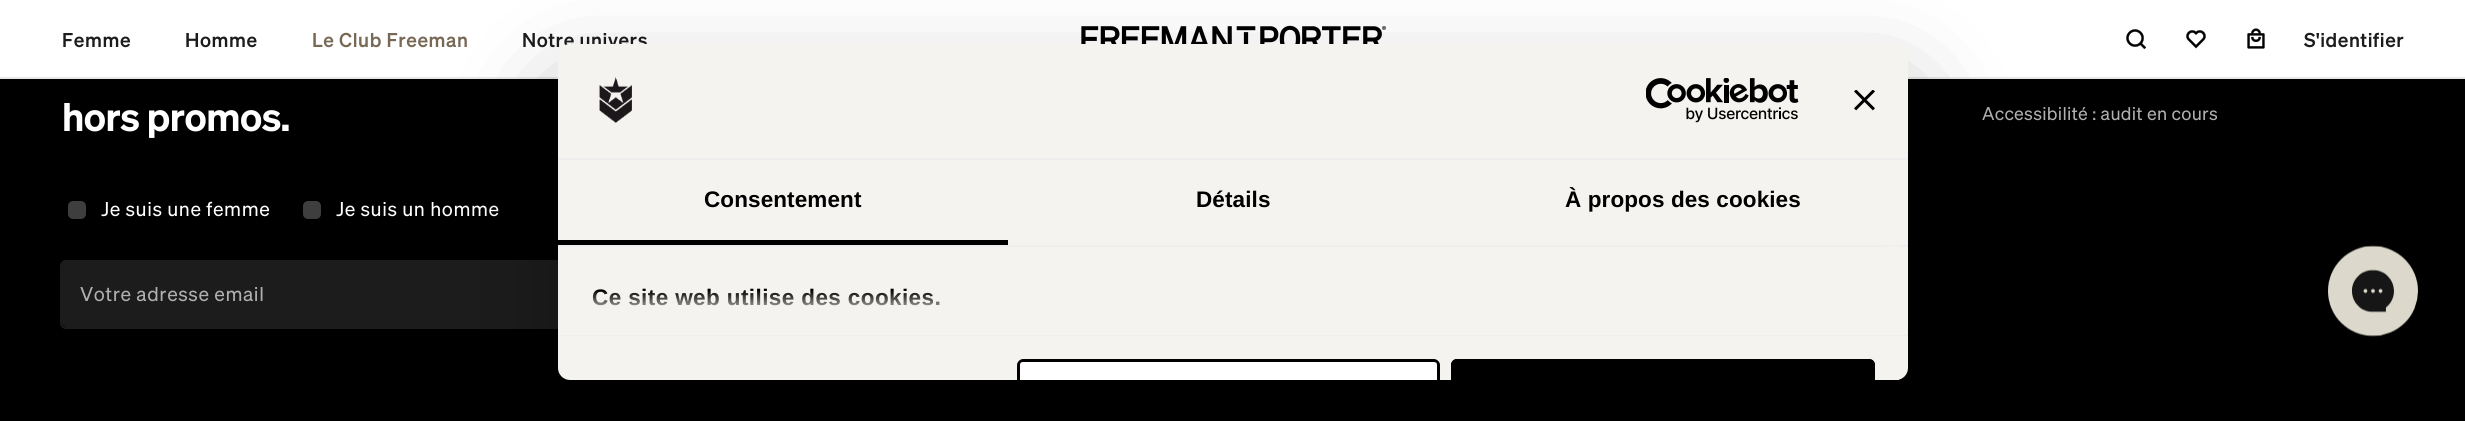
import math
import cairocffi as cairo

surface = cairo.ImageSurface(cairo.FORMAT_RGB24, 2465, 421)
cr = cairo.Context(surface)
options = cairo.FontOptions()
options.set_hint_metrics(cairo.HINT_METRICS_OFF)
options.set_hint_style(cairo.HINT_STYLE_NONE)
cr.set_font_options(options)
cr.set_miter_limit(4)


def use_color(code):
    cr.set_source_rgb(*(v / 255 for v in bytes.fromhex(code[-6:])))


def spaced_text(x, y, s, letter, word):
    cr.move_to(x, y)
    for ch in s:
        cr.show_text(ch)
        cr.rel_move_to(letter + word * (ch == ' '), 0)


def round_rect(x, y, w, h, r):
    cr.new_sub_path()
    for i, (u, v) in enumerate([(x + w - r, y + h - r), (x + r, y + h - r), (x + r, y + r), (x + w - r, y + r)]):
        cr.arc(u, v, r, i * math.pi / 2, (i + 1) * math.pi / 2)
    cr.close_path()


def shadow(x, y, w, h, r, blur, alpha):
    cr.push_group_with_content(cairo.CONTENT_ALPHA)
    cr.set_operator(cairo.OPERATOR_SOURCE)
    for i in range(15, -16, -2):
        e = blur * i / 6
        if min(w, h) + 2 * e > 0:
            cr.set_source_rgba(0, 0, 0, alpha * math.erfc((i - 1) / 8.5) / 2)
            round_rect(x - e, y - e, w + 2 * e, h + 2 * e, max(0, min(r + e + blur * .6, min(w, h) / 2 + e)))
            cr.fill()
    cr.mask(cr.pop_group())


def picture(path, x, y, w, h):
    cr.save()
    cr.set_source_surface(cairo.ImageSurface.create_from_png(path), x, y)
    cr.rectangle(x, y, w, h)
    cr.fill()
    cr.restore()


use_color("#000000")
cr.paint()
use_color("#ffffff")
cr.rectangle(0, 0, 2465, 77)
cr.fill()
cr.select_font_face("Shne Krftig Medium")
cr.set_font_size(19.5)
use_color("#1c1c1c")
spaced_text(62, 47, "Femme", 0.6, 0)
spaced_text(185, 47, "Homme", 0.6, 0)
use_color("#786856")
spaced_text(312, 47, "Le Club Freeman", 0.6, 0)
use_color("#1c1c1c")
spaced_text(522, 47, "Notre univers", 0.6, 0)
picture("img1.png", 1081, 25, 305, 19)
picture("img2.png", 2126, 29, 21, 21)
picture("img3.png", 2186, 30, 20, 19)
picture("img4.png", 2247, 28, 18, 21)
spaced_text(2304, 47, "S'identifier", 0.6, 0)
use_color("#e7e7e7")
cr.rectangle(0, 77, 2465, 2)
cr.fill()
cr.select_font_face("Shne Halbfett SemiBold")
cr.set_font_size(39)
use_color("#ffffff")
spaced_text(62, 131, "hors promos.", -0.5, 0)
use_color("#3e3e3e")
round_rect(69, 202, 16, 16, 4)
cr.fill_preserve()
cr.stroke()
cr.select_font_face("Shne")
cr.set_font_size(19.5)
use_color("#ffffff")
spaced_text(101, 216, "Je suis une femme", 0.6, 0)
use_color("#3e3e3e")
round_rect(304, 202, 16, 16, 4)
cr.fill_preserve()
cr.stroke()
use_color("#ffffff")
spaced_text(336, 216, "Je suis un homme", 0.6, 0)
use_color("#1c1c1c")
round_rect(62, 261, 649, 66, 5)
cr.fill()
round_rect(61, 261, 651, 67, 5)
cr.stroke()
use_color("#b0b0b0")
spaced_text(80, 301, "Votre adresse email", 0.6, 0)
cr.set_font_size(18)
spaced_text(1982, 120, "Accessibilité : audit en cours", 0.3, 0)
use_color("#000000")
shadow(558, 92, 1350, 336, 12, 51, 0.3)
use_color("#f4f3ef")
round_rect(558, 44, 1350, 336, 12)
cr.fill()
use_color("#eeeeee")
cr.rectangle(558, 158, 1350, 2)
cr.fill()
picture("img5.png", 599, 77, 33, 46)
picture("img6.png", 1646, 78, 153, 45)
picture("img7.png", 1854, 90, 21, 21)
cr.rectangle(558, 245, 1350, 2)
cr.fill()
use_color("#000000")
cr.rectangle(558, 240, 450, 5)
cr.fill()
cr.select_font_face("Liberation Sans", cairo.FONT_SLANT_NORMAL, cairo.FONT_WEIGHT_BOLD)
cr.set_font_size(22.5)
spaced_text(704, 207, "Consentement", 0.1, 0)
spaced_text(1196, 207, "Détails", 0.1, 0)
spaced_text(1565, 207, "À propos des cookies", 0.1, 0)
use_color("#eeeeee")
cr.rectangle(558, 335, 1350, 1)
cr.fill()
use_color("#f4f3ef")
cr.rectangle(1886, 246, 13, 1)
cr.fill()
use_color("#000000")
spaced_text(592, 305, "Ce site web utilise des cookies.", 0.4, 0)
gradient = cairo.LinearGradient(1218, 334, 1218, 290)
gradient.add_color_stop_rgba(0, 0.957, 0.953, 0.937, 1)
gradient.add_color_stop_rgba(0.5, 0.957, 0.953, 0.937, 0.8)
gradient.add_color_stop_rgba(1, 0.957, 0.953, 0.937, 0)
cr.set_source(gradient)
cr.rectangle(592, 291, 347, 15)
cr.fill()
use_color("#ffffff")
cr.new_path()
cr.move_to(1023, 359)
cr.line_to(1434, 359)
cr.curve_to(1437.5, 359, 1440, 361.5, 1440, 365)
cr.line_to(1440, 380)
cr.line_to(1017, 380)
cr.line_to(1017, 365)
cr.curve_to(1017, 361.5, 1019.5, 359, 1023, 359)
cr.close_path()
cr.fill()
use_color("#000000")
cr.new_path()
cr.move_to(1023, 359)
cr.curve_to(1020, 359, 1017, 362, 1017, 365)
cr.line_to(1017, 380)
cr.line_to(1020, 380)
cr.line_to(1020, 365)
cr.curve_to(1020, 363, 1021, 362, 1023, 362)
cr.line_to(1434, 362)
cr.curve_to(1436, 362, 1437, 363, 1437, 365)
cr.line_to(1437, 380)
cr.line_to(1440, 380)
cr.line_to(1440, 365)
cr.curve_to(1440, 362, 1437, 359, 1434, 359)
cr.close_path()
cr.fill()
cr.new_path()
cr.move_to(1457, 359)
cr.line_to(1869, 359)
cr.curve_to(1872.5, 359, 1875, 361.5, 1875, 365)
cr.line_to(1875, 380)
cr.line_to(1451, 380)
cr.line_to(1451, 365)
cr.curve_to(1451, 361.5, 1453.5, 359, 1457, 359)
cr.close_path()
cr.fill()
cr.new_path()
cr.move_to(1457, 359)
cr.curve_to(1454, 359, 1451, 362, 1451, 365)
cr.line_to(1451, 380)
cr.line_to(1454, 380)
cr.line_to(1454, 365)
cr.curve_to(1454, 363, 1455, 362, 1457, 362)
cr.line_to(1869, 362)
cr.curve_to(1871, 362, 1872, 363, 1872, 365)
cr.line_to(1872, 380)
cr.line_to(1875, 380)
cr.line_to(1875, 365)
cr.curve_to(1875, 362, 1872, 359, 1869, 359)
cr.close_path()
cr.fill()
use_color("#f4f3ef")
cr.rectangle(1896, 379, 3, 1)
cr.fill()
picture("img8.png", 2328, 245, 90, 92)
surface.write_to_png("result.png")
